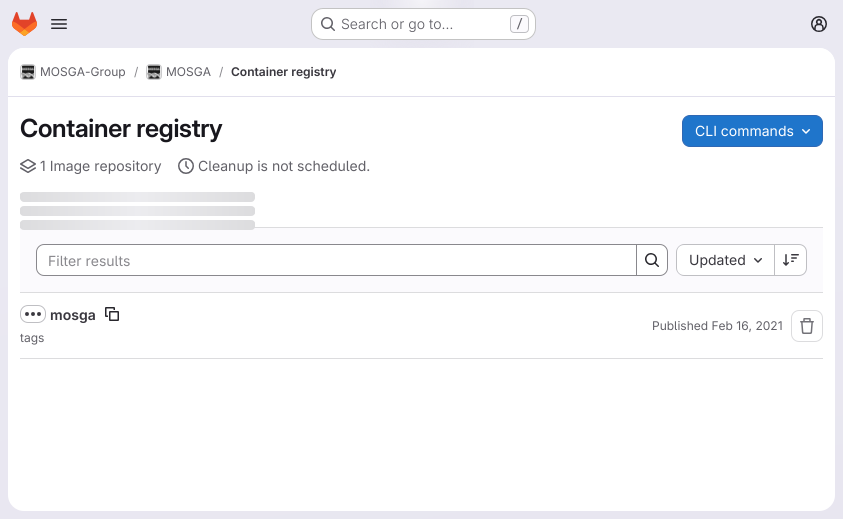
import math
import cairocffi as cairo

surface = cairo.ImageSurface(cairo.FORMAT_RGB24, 843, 519)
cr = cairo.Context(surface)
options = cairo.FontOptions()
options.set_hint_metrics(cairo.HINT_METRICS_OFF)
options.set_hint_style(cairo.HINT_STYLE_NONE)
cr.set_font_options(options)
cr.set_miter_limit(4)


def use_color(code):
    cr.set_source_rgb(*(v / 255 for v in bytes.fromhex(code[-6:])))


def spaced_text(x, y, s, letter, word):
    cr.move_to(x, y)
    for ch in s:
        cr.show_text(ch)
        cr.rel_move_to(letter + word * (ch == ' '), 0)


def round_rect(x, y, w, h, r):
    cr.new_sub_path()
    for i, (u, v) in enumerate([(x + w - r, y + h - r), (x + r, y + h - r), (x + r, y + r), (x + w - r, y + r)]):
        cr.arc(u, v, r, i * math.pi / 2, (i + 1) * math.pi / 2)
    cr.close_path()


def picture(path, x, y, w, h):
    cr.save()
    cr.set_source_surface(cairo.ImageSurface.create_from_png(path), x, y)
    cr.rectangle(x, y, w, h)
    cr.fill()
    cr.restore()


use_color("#ffffff")
cr.paint()
gradient = cairo.LinearGradient(479, 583, 364, -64)
gradient.add_color_stop_rgba(0, 0.91, 0.902, 0.941, 1)
gradient.add_color_stop_rgba(0.7, 0.918, 0.914, 0.949, 1)
cr.set_source(gradient)
cr.rectangle(0, 0, 843, 519)
cr.fill()
gradient = cairo.RadialGradient(0, 0, 0, 0, 0, 1)
gradient.set_matrix(cairo.Matrix(1 / 422, 0, 0, 1 / 519, -1 * 422 / 422, -1 * 0 / 519))
gradient.add_color_stop_rgba(0, 0.894, 0.886, 0.929, 1)
gradient.add_color_stop_rgba(0.17, 0.894, 0.886, 0.929, 0)
cr.set_source(gradient)
cr.rectangle(370, 0, 104, 48)
cr.fill()
gradient = cairo.RadialGradient(0, 0, 0, 0, 0, 1)
gradient.set_matrix(cairo.Matrix(1 / 422, 0, 0, 1 / 519, -1 * 422 / 422, -1 * 0 / 519))
gradient.add_color_stop_rgba(0, 0.894, 0.886, 0.925, 1)
gradient.add_color_stop_rgba(0.12, 0.894, 0.886, 0.925, 0)
cr.set_source(gradient)
cr.rectangle(409, 1, 32, 25)
cr.fill()
gradient = cairo.RadialGradient(422, 0, 0, 422, 0, 669)
gradient.add_color_stop_rgba(0, 1, 1, 1, 0.6)
gradient.add_color_stop_rgba(0.06, 1, 1, 1, 0)
cr.set_source(gradient)
cr.rectangle(383, 0, 78, 8)
cr.fill()
picture("img1.png", 12, 12, 25, 24)
picture("img2.png", 51, 19, 16, 10)
use_color("#ffffff")
round_rect(311, 8, 225, 32, 12)
cr.fill()
round_rect(311.5, 8.5, 224, 31, 11.5)
cr.set_source_rgba(0.02, 0.02, 0.024, 0.24)
cr.set_line_width(1)
cr.stroke()
picture("img3.png", 321, 17, 14, 14)
cr.select_font_face("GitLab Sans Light")
cr.set_font_size(14)
use_color("#626168")
cr.move_to(341, 29)
cr.show_text("Search or go to…")
use_color("#fbfafd")
round_rect(510.5, 15.5, 18, 17, 3.5)
cr.fill_preserve()
use_color("#bfbfc3")
cr.stroke()
cr.select_font_face("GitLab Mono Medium")
cr.set_font_size(12)
use_color("#626168")
cr.move_to(516, 28)
cr.show_text("/")
picture("img4.png", 811, 16, 16, 16)
use_color("#ffffff")
round_rect(8, 48, 827, 463, 16)
cr.fill()
cr.new_path()
cr.move_to(24, 48)
cr.line_to(819, 48)
cr.curve_to(828, 48, 835, 55, 835, 64)
cr.line_to(835, 97)
cr.line_to(8, 97)
cr.line_to(8, 64)
cr.curve_to(8, 55, 15, 48, 24, 48)
cr.close_path()
cr.fill()
use_color("#e1dfec")
cr.rectangle(8, 96, 827, 1)
cr.fill()
round_rect(20.5, 64.5, 15, 15, 3.5)
use_color("#dcdcde")
cr.stroke()
picture("img5.png", 21, 65, 14, 14)
round_rect(20.5, 64.5, 15, 15, 3.5)
cr.set_source_rgba(0.02, 0.02, 0.024, 0.08)
cr.stroke()
cr.select_font_face("GitLab Sans")
use_color("#626168")
cr.move_to(40, 76)
cr.show_text("MOSGA-Group")
use_color("#89888d")
cr.move_to(134, 76)
cr.show_text("/")
round_rect(146.5, 64.5, 15, 15, 3.5)
use_color("#dcdcde")
cr.stroke()
picture("img6.png", 147, 65, 14, 14)
round_rect(146.5, 64.5, 15, 15, 3.5)
cr.set_source_rgba(0.02, 0.02, 0.024, 0.08)
cr.stroke()
use_color("#626168")
cr.move_to(166, 76)
cr.show_text("MOSGA")
use_color("#89888d")
cr.move_to(219, 76)
cr.show_text("/")
cr.select_font_face("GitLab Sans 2 SemiBold")
use_color("#3a383f")
cr.move_to(231, 76)
cr.show_text("Container registry")
cr.select_font_face("GitLab Sans SemiBold")
cr.set_font_size(25)
use_color("#18171d")
spaced_text(20, 137, "Container registry", -0.25, 0)
use_color("#1f75cb")
round_rect(682.5, 115.5, 140, 31, 7.5)
cr.fill_preserve()
use_color("#2f68b4")
cr.stroke()
cr.select_font_face("GitLab Sans")
cr.set_font_size(14)
use_color("#ffffff")
cr.move_to(695, 136)
cr.show_text("CLI commands")
picture("img7.png", 802, 129, 8, 5)
picture("img8.png", 20, 159, 16, 14)
use_color("#626168")
cr.move_to(40, 171)
cr.show_text("1 Image repository")
picture("img9.png", 178, 158, 16, 16)
cr.move_to(198, 171)
cr.show_text("Cleanup is not scheduled.")
use_color("#fbfafd")
cr.rectangle(20, 228, 803, 64)
cr.fill()
use_color("#dcdcde")
cr.rectangle(20, 227, 803, 1)
cr.fill()
cr.save()
cr.rectangle(20, 192, 235, 38)
cr.clip()
gradient = cairo.LinearGradient(20, 192, 255, 192)
gradient.add_color_stop_rgba(0, 0.863, 0.863, 0.871, 1)
gradient.add_color_stop_rgba(0.5, 0.925, 0.925, 0.937, 1)
gradient.add_color_stop_rgba(1, 0.863, 0.863, 0.871, 1)
cr.set_source(gradient)
cr.set_fill_rule(cairo.FILL_RULE_EVEN_ODD)
cr.new_path()
cr.move_to(24, 192)
cr.curve_to(22, 192, 21, 193, 20, 194)
cr.line_to(20, 198)
cr.curve_to(20, 200, 22, 202, 24, 202)
cr.line_to(251, 202)
cr.curve_to(256, 202, 257, 193, 252, 192)
cr.close_path()
cr.move_to(24, 206)
cr.curve_to(18, 206, 18, 216, 24, 216)
cr.line_to(251, 216)
cr.curve_to(257, 216, 257, 206, 251, 206)
cr.close_path()
cr.move_to(24, 220)
cr.curve_to(18, 220, 18, 230, 24, 230)
cr.line_to(251, 230)
cr.curve_to(257, 230, 257, 220, 251, 220)
cr.close_path()
cr.fill()
cr.restore()
cr.rectangle(20, 292, 803, 1)
cr.fill()
use_color("#ffffff")
cr.new_path()
cr.move_to(44, 244.5)
cr.line_to(636.5, 244.5)
cr.line_to(636.5, 275.5)
cr.line_to(44, 275.5)
cr.curve_to(40, 275.5, 36.5, 272, 36.5, 268)
cr.line_to(36.5, 252)
cr.curve_to(36.5, 248, 40, 244.5, 44, 244.5)
cr.close_path()
cr.fill_preserve()
use_color("#89888d")
cr.stroke()
cr.move_to(48, 266)
cr.show_text("Filter results")
use_color("#ffffff")
cr.new_path()
cr.move_to(636.5, 244.5)
cr.line_to(660, 244.5)
cr.curve_to(664, 244.5, 667.5, 248, 667.5, 252)
cr.line_to(667.5, 268)
cr.curve_to(667.5, 272, 664, 275.5, 660, 275.5)
cr.line_to(636.5, 275.5)
cr.close_path()
cr.fill_preserve()
use_color("#89888d")
cr.stroke()
picture("img10.png", 645, 253, 14, 14)
use_color("#ffffff")
cr.new_path()
cr.move_to(684, 245)
cr.line_to(774, 245)
cr.line_to(774, 275)
cr.line_to(684, 275)
cr.curve_to(680, 275, 677, 272, 677, 268)
cr.line_to(677, 252)
cr.curve_to(677, 248, 680, 245, 684, 245)
cr.close_path()
cr.fill()
use_color("#bfbfc3")
cr.set_fill_rule(cairo.FILL_RULE_EVEN_ODD)
cr.new_path()
cr.move_to(684, 244)
cr.line_to(774, 244)
cr.line_to(774, 276)
cr.line_to(684, 276)
cr.curve_to(680, 276, 676, 272, 676, 268)
cr.line_to(676, 252)
cr.curve_to(676, 248, 680, 244, 684, 244)
cr.close_path()
cr.move_to(684, 245)
cr.line_to(774, 245)
cr.line_to(774, 275)
cr.line_to(684, 275)
cr.curve_to(680, 275, 677, 272, 677, 268)
cr.line_to(677, 252)
cr.curve_to(677, 248, 680, 245, 684, 245)
cr.close_path()
cr.fill()
use_color("#3a383f")
cr.move_to(689, 265)
cr.show_text("Updated")
picture("img11.png", 754, 258, 8, 5)
use_color("#ffffff")
cr.new_path()
cr.move_to(775, 245)
cr.line_to(799, 245)
cr.curve_to(803, 245, 806, 248, 806, 252)
cr.line_to(806, 268)
cr.curve_to(806, 272, 803, 275, 799, 275)
cr.line_to(775, 275)
cr.close_path()
cr.fill()
use_color("#bfbfc3")
cr.new_path()
cr.move_to(775, 244)
cr.line_to(799, 244)
cr.curve_to(803.5, 244, 807, 247.5, 807, 252)
cr.line_to(807, 268)
cr.curve_to(807, 272.5, 803.5, 276, 799, 276)
cr.line_to(775, 276)
cr.close_path()
cr.move_to(775, 245)
cr.line_to(799, 245)
cr.curve_to(803, 245, 806, 248, 806, 252)
cr.line_to(806, 268)
cr.curve_to(806, 272, 803, 275, 799, 275)
cr.line_to(775, 275)
cr.close_path()
cr.fill()
cr.rectangle(774, 244, 1, 32)
cr.fill()
picture("img12.png", 783, 254, 16, 12)
use_color("#dcdcde")
cr.rectangle(20, 358, 803, 1)
cr.fill()
round_rect(20.5, 305.5, 25, 17, 7.5)
use_color("#bfbfc3")
cr.stroke()
picture("img13.png", 25, 312, 16, 4)
cr.select_font_face("GitLab Sans 2 SemiBold")
use_color("#3a383f")
cr.move_to(50, 320)
cr.show_text("mosga")
picture("img14.png", 105, 307, 14, 14)
cr.select_font_face("GitLab Sans")
cr.set_font_size(12)
use_color("#626168")
cr.move_to(20, 342)
cr.show_text("tags")
cr.move_to(652, 330)
cr.show_text("Published Feb 16, 2021")
round_rect(791.5, 310.5, 31, 31, 7.5)
use_color("#dcdcde")
cr.stroke()
picture("img15.png", 800, 318, 14, 16)
surface.write_to_png("result.png")
